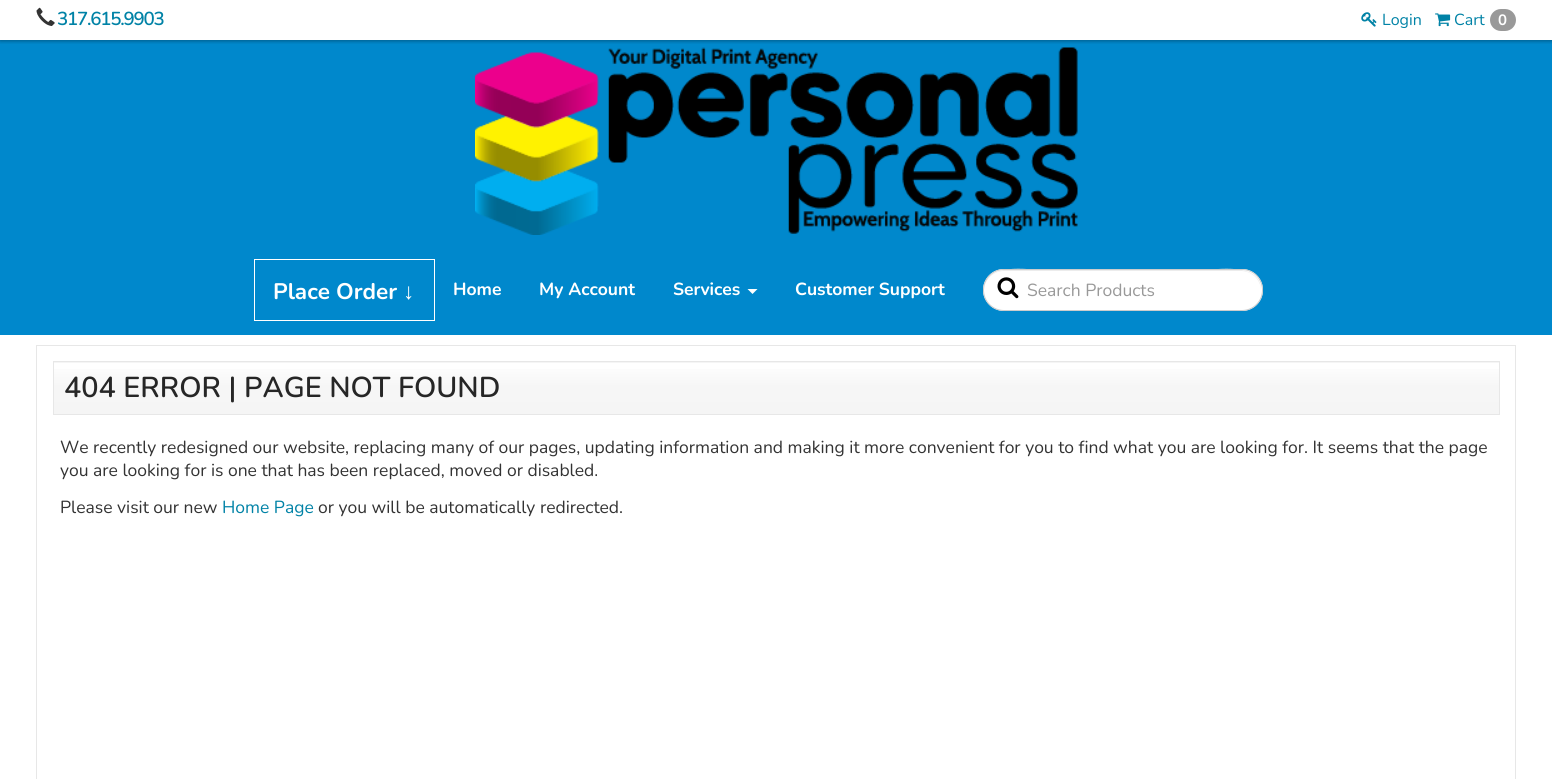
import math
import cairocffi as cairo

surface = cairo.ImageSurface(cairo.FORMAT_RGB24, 1552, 779)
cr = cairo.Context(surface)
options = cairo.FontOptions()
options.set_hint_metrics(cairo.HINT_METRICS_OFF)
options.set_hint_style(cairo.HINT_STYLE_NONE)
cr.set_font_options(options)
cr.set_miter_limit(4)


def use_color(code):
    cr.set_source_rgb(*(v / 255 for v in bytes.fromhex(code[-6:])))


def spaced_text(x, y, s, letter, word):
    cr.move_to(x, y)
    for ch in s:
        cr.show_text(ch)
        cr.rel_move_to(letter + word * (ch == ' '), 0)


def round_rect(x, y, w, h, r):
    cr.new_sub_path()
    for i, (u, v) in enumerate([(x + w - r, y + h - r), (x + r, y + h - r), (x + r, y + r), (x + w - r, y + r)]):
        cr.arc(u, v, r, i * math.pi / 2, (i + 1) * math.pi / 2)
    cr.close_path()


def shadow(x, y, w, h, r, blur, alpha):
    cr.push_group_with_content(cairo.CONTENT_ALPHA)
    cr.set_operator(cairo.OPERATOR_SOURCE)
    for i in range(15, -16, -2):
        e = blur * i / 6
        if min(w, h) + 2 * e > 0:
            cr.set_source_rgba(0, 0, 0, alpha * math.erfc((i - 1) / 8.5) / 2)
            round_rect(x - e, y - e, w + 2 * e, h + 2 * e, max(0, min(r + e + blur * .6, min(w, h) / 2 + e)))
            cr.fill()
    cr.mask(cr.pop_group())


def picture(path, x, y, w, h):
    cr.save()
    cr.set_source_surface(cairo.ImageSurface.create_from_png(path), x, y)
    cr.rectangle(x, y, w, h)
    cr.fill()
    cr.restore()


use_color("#ffffff")
cr.paint()
use_color("#0088cc")
cr.rectangle(0, 40, 1552, 295)
cr.fill()
picture("img4.png", 475, 47, 603, 188)
cr.save()
cr.rectangle(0, 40, 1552, 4)
cr.clip()
use_color("#000000")
shadow(0, 1, 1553, 40, 0, 2, 0.35)
cr.restore()
picture("img1.png", 36, 7, 19, 19)
cr.select_font_face("Nunito SemiBold")
cr.set_font_size(18.75)
use_color("#0082a6")
spaced_text(57, 25, "317.615.9903", -1.25, 0)
picture("img2.png", 1361, 12, 16, 15)
cr.select_font_face("Nunito")
cr.set_font_size(16)
cr.move_to(1382, 25)
cr.show_text("Login")
picture("img3.png", 1435, 13, 16, 14)
cr.move_to(1454, 25)
cr.show_text("Cart")
use_color("#999999")
round_rect(1490, 9, 26, 22, 11)
cr.fill()
cr.select_font_face("Nunito", cairo.FONT_SLANT_NORMAL, cairo.FONT_WEIGHT_BOLD)
cr.set_font_size(15)
use_color("#ffffff")
cr.move_to(1498, 25)
cr.show_text("0")
cr.rectangle(254.5, 259.5, 180, 61)
cr.set_line_width(1)
cr.stroke()
cr.set_font_size(22.5)
cr.move_to(273, 299)
cr.show_text("Place Order")
cr.select_font_face("Liberation Serif", cairo.FONT_SLANT_NORMAL, cairo.FONT_WEIGHT_BOLD)
cr.move_to(403, 299)
cr.show_text("↓")
cr.select_font_face("Nunito", cairo.FONT_SLANT_NORMAL, cairo.FONT_WEIGHT_BOLD)
cr.set_font_size(17.5)
cr.move_to(453, 295)
cr.show_text("Home")
cr.move_to(539, 295)
cr.show_text("My Account")
cr.move_to(673, 295)
cr.show_text("Services")
cr.new_path()
cr.move_to(747.5, 289)
cr.line_to(757.5, 289)
cr.line_to(752.5, 294)
cr.close_path()
cr.fill()
cr.move_to(795, 295)
cr.show_text("Customer Support")
round_rect(983, 269, 280, 42, 21)
cr.fill()
use_color("#ececec")
cr.new_path()
cr.move_to(1004, 271)
cr.line_to(1241, 271)
cr.curve_to(1252, 271, 1261, 280, 1261, 291)
cr.curve_to(1262, 261, 1215, 270, 1202, 270)
cr.line_to(1044, 270)
cr.curve_to(1029, 270, 983, 261, 984, 291)
cr.curve_to(984, 280, 993, 271, 1004, 271)
cr.close_path()
cr.fill()
round_rect(983.5, 269.5, 279, 41, 20.5)
use_color("#cccccc")
cr.stroke()
picture("img5.png", 997, 277, 22, 22)
cr.select_font_face("Nunito")
use_color("#999999")
cr.move_to(1027, 296)
cr.show_text("Search Products")
cr.rectangle(36.5, 345.5, 1479, 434)
use_color("#e7e7e7")
cr.stroke()
gradient = cairo.LinearGradient(776, 311, 776, 363)
gradient.add_color_stop_rgba(0, 1, 1, 1, 1)
gradient.add_color_stop_rgba(0.47, 0.965, 0.965, 0.965, 1)
gradient.add_color_stop_rgba(1, 0.961, 0.961, 0.961, 1)
cr.set_source(gradient)
cr.rectangle(53, 362, 1447, 1)
cr.fill()
gradient = cairo.LinearGradient(776, 362, 776, 414)
gradient.add_color_stop_rgba(0, 1, 1, 1, 1)
gradient.add_color_stop_rgba(0.47, 0.965, 0.965, 0.965, 1)
gradient.add_color_stop_rgba(1, 0.961, 0.961, 0.961, 1)
cr.set_source(gradient)
cr.rectangle(54, 369, 1445, 45)
cr.fill()
cr.rectangle(53.5, 361.5, 1446, 53)
use_color("#e7e7e7")
cr.stroke()
cr.select_font_face("Nunito SemiBold")
cr.set_font_size(28.75)
use_color("#262626")
cr.move_to(64, 397)
cr.show_text("404 ERROR | PAGE NOT FOUND")
cr.select_font_face("Nunito")
cr.set_font_size(17.5)
use_color("#333333")
cr.move_to(60, 453)
cr.show_text("We recently redesigned our website, replacing many of our pages, updating information and making it more convenient for you to find what you are looking for. It seems that the page")
cr.move_to(60, 476)
cr.show_text("you are looking for is one that has been replaced, moved or disabled.")
cr.move_to(60, 513)
cr.show_text("Please visit our new")
use_color("#0082a6")
cr.move_to(222, 513)
cr.show_text("Home Page")
use_color("#333333")
cr.move_to(318, 513)
cr.show_text("or you will be automatically redirected.")
surface.write_to_png("result.png")
